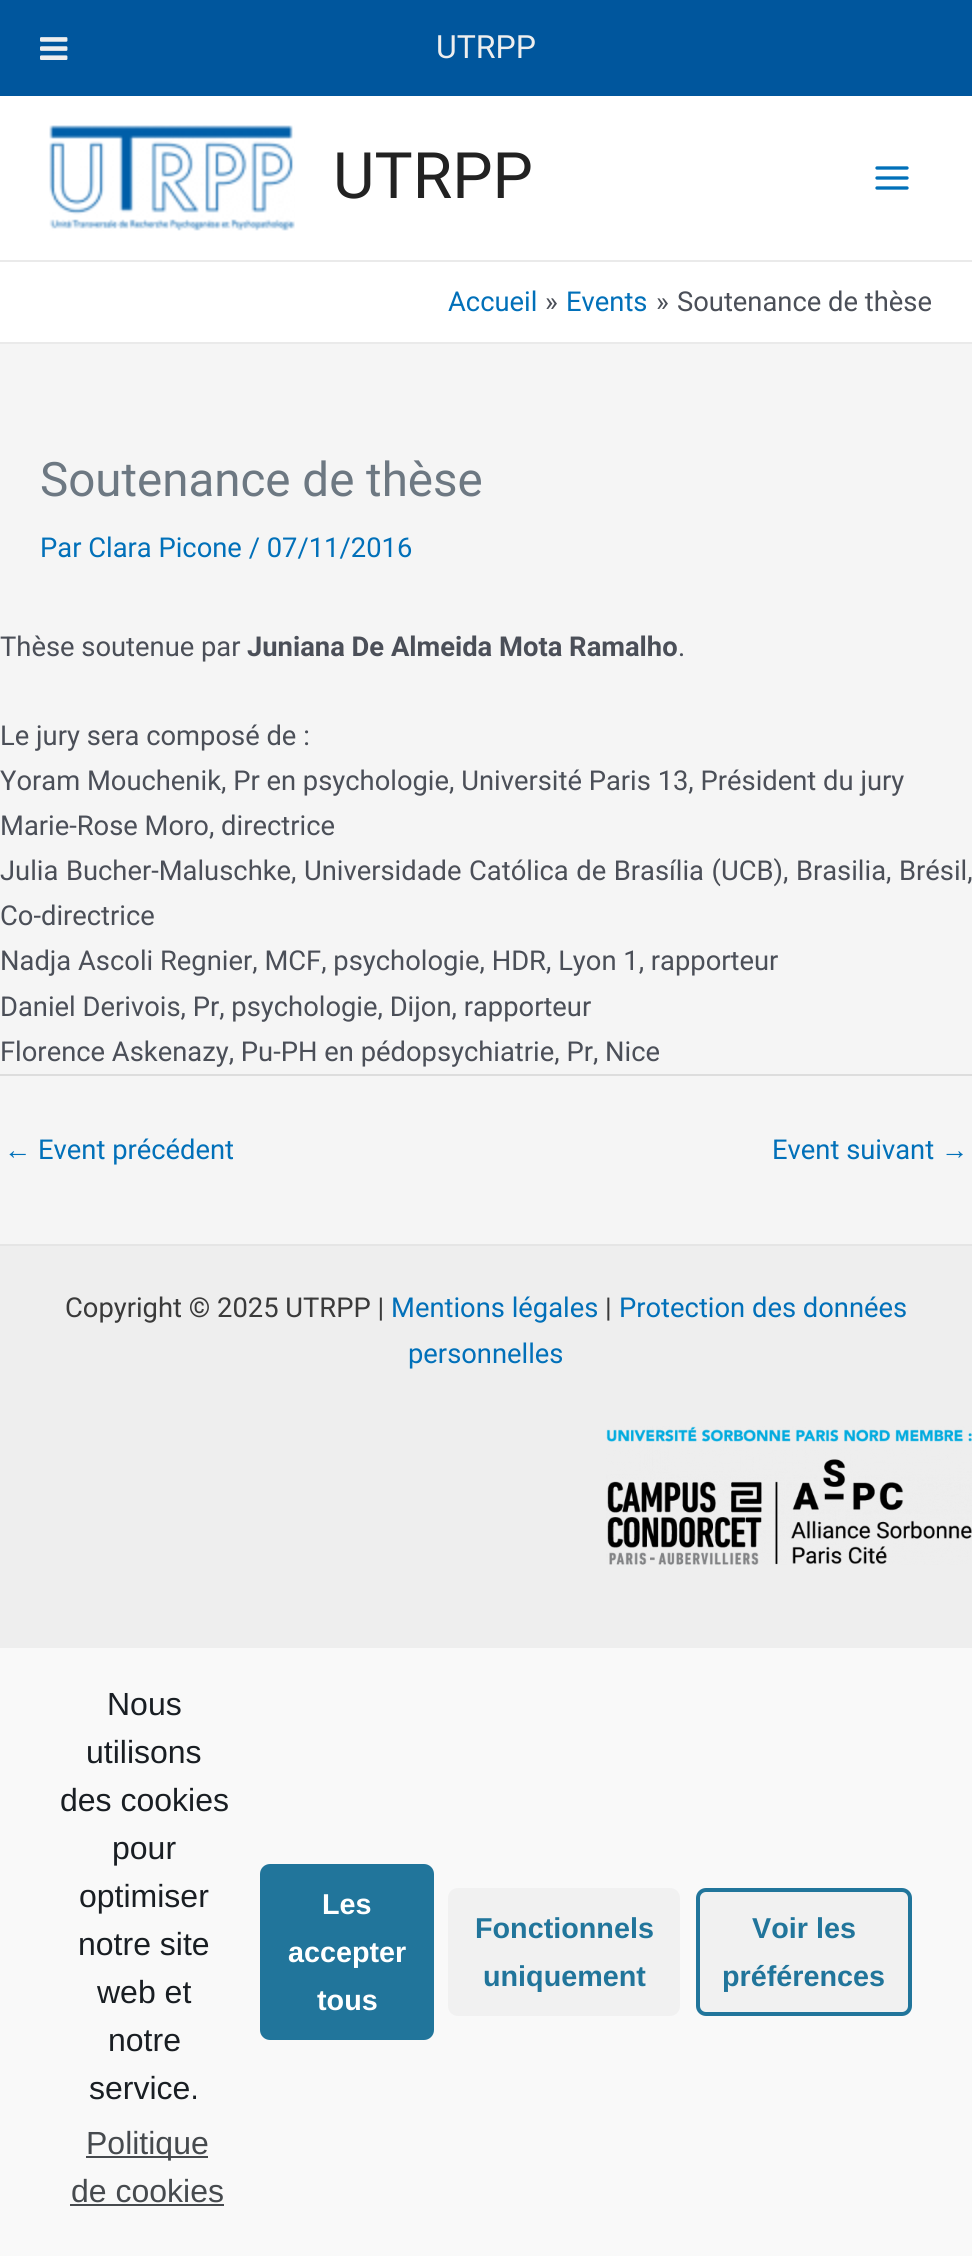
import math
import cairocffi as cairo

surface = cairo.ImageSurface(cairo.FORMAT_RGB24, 972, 2256)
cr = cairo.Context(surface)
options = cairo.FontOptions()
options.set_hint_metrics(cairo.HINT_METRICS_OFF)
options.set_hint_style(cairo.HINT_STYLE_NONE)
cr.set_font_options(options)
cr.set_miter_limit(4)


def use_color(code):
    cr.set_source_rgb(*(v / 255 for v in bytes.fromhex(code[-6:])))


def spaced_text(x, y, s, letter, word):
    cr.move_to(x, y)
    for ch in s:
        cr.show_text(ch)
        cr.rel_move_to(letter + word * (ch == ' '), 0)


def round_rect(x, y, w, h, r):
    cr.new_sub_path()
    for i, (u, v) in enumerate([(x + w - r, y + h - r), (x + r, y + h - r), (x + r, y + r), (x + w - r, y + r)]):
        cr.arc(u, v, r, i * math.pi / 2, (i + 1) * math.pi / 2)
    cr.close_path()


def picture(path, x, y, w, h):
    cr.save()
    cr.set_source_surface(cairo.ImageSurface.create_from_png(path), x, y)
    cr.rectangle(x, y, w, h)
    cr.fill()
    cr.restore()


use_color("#f5f5f5")
cr.paint()
use_color("#00569d")
cr.rectangle(0, 0, 972, 96)
cr.fill()
picture("img1.png", 40, 37, 28, 23)
cr.select_font_face("Roboto")
cr.set_font_size(32)
use_color("#eeeeee")
cr.move_to(436, 58)
cr.show_text("UTRPP")
use_color("#ffffff")
cr.rectangle(0, 96, 972, 164)
cr.fill()
use_color("#eaeaea")
cr.rectangle(0, 260, 972, 2)
cr.fill()
picture("img2.png", 49, 125, 246, 106)
cr.set_font_size(64)
use_color("#222222")
cr.move_to(333, 198)
cr.show_text("UTRPP")
picture("img3.png", 875, 166, 34, 24)
use_color("#ffffff")
cr.rectangle(0, 262, 972, 80)
cr.fill()
use_color("#eaeaea")
cr.rectangle(0, 342, 972, 2)
cr.fill()
cr.set_font_size(27.35)
use_color("#0170b9")
cr.move_to(448, 311)
cr.show_text("Accueil")
use_color("#4b4f58")
cr.move_to(545, 311)
cr.show_text("»")
use_color("#0170b9")
cr.move_to(566, 311)
cr.show_text("Events")
use_color("#4b4f58")
cr.move_to(656, 311)
cr.show_text("»")
cr.move_to(677, 311)
cr.show_text("Soutenance de thèse")
cr.set_font_size(47.5)
use_color("#6d7882")
cr.move_to(40, 496)
cr.show_text("Soutenance de thèse")
cr.set_font_size(27.35)
use_color("#0170b9")
cr.move_to(40, 557)
cr.show_text("Par Clara Picone / 07/11/2016")
use_color("#4b4f58")
cr.move_to(0, 656)
cr.show_text("Thèse soutenue par")
cr.select_font_face("Roboto", cairo.FONT_SLANT_NORMAL, cairo.FONT_WEIGHT_BOLD)
cr.move_to(247, 656)
cr.show_text("Juniana De Almeida Mota Ramalho")
cr.select_font_face("Roboto")
cr.move_to(678, 656)
cr.show_text(".")
cr.move_to(0, 745)
cr.show_text("Le jury sera composé de :")
cr.move_to(0, 790)
cr.show_text("Yoram Mouchenik, Pr en psychologie, Université Paris 13, Président du jury")
cr.move_to(0, 835)
cr.show_text("Marie-Rose Moro, directrice")
spaced_text(0, 880, "Julia Bucher-Maluschke, Universidade Católica de Brasília (UCB), Brasilia, Brésil,", 0, 0.75)
cr.move_to(0, 925)
cr.show_text("Co-directrice")
cr.move_to(0, 970)
cr.show_text("Nadja Ascoli Regnier, MCF, psychologie, HDR, Lyon 1, rapporteur")
cr.move_to(0, 1016)
cr.show_text("Daniel Derivois, Pr, psychologie, Dijon, rapporteur")
cr.move_to(0, 1061)
cr.show_text("Florence Askenazy, Pu-PH en pédopsychiatrie, Pr, Nice")
use_color("#dddddd")
cr.rectangle(0, 1074, 972, 2)
cr.fill()
cr.select_font_face("Liberation Sans")
use_color("#0170b9")
cr.move_to(4, 1159)
cr.show_text("←")
cr.select_font_face("Roboto")
cr.move_to(38, 1159)
cr.show_text("Event précédent")
cr.move_to(772, 1159)
cr.show_text("Event suivant")
cr.select_font_face("Liberation Sans")
cr.move_to(941, 1159)
cr.show_text("→")
use_color("#eeeeee")
cr.rectangle(0, 1246, 972, 402)
cr.fill()
use_color("#e5e5e5")
cr.rectangle(0, 1244, 972, 2)
cr.fill()
cr.select_font_face("Roboto")
use_color("#3a3a3a")
cr.move_to(65, 1317)
cr.show_text("Copyright © 2025 UTRPP |")
use_color("#0170b9")
cr.move_to(391, 1317)
cr.show_text("Mentions légales")
use_color("#3a3a3a")
cr.move_to(605, 1317)
cr.show_text("|")
use_color("#0170b9")
cr.move_to(619, 1317)
cr.show_text("Protection des données")
cr.move_to(408, 1363)
cr.show_text("personnelles")
picture("img4.png", 606, 1426, 366, 139)
use_color("#f9f9f9")
cr.rectangle(0, 1648, 972, 608)
cr.fill()
cr.select_font_face("Liberation Sans")
cr.set_font_size(32)
use_color("#191e23")
cr.move_to(107, 1715)
cr.show_text("Nous")
cr.move_to(86, 1763)
cr.show_text("utilisons")
cr.move_to(60, 1811)
cr.show_text("des cookies")
cr.move_to(112, 1859)
cr.show_text("pour")
cr.move_to(79, 1907)
cr.show_text("optimiser")
cr.move_to(78, 1955)
cr.show_text("notre site")
cr.move_to(97, 2003)
cr.show_text("web et")
cr.move_to(108, 2051)
cr.show_text("notre")
cr.move_to(89, 2099)
cr.show_text("service.")
use_color("#464a4e")
cr.rectangle(86, 2156, 122, 2)
cr.fill()
cr.move_to(86, 2154)
cr.show_text("Politique")
cr.move_to(71, 2202)
cr.show_text("de cookies")
cr.rectangle(70, 2204, 154, 2)
cr.fill()
use_color("#21759b")
round_rect(262, 1866, 170, 172, 8)
cr.fill_preserve()
cr.set_line_width(4)
cr.stroke()
cr.select_font_face("Liberation Sans", cairo.FONT_SLANT_NORMAL, cairo.FONT_WEIGHT_BOLD)
cr.set_font_size(28.75)
use_color("#ffffff")
cr.move_to(322, 1914)
cr.show_text("Les")
cr.move_to(288, 1962)
cr.show_text("accepter")
cr.move_to(317, 2010)
cr.show_text("tous")
use_color("#f1f1f1")
round_rect(448, 1888, 232, 128, 10)
cr.fill()
use_color("#21759b")
cr.move_to(475, 1938)
cr.show_text("Fonctionnels")
cr.move_to(483, 1986)
cr.show_text("uniquement")
use_color("#f1f1f1")
round_rect(698, 1890, 212, 124, 8)
cr.fill_preserve()
use_color("#21759b")
cr.stroke()
cr.move_to(752, 1938)
cr.show_text("Voir les")
cr.move_to(722, 1986)
cr.show_text("préférences")
surface.write_to_png("result.png")
